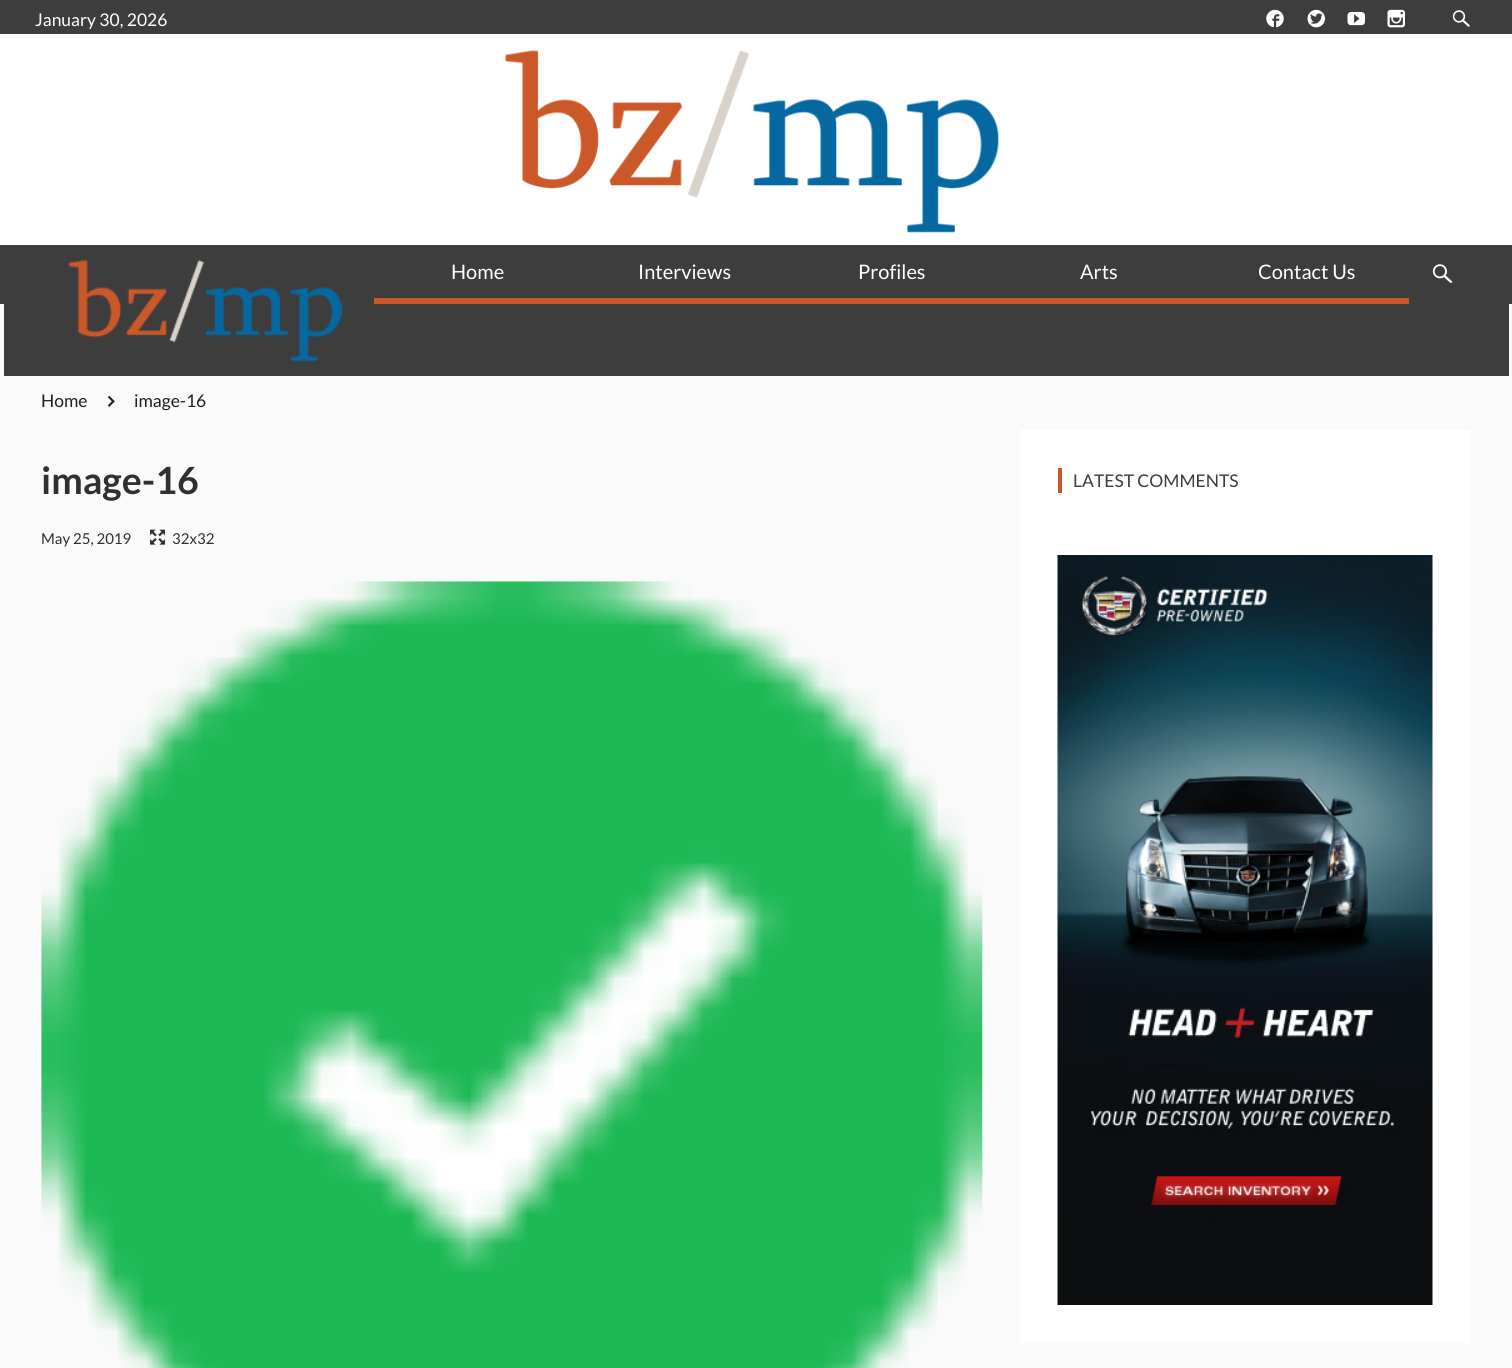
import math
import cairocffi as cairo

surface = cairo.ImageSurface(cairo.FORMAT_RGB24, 1512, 1368)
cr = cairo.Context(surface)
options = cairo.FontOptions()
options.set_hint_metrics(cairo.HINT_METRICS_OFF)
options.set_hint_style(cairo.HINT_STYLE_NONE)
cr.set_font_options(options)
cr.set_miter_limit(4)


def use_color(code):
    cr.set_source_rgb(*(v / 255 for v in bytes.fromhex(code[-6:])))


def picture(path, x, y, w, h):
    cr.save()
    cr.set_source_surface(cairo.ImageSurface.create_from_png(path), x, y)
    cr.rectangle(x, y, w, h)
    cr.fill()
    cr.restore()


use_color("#fafafa")
cr.paint()
use_color("#3d3d3d")
cr.rectangle(0, 0, 1512, 34)
cr.fill()
cr.select_font_face("Lato")
cr.set_font_size(17.5)
use_color("#ffffff")
cr.move_to(35, 26)
cr.show_text("January 30, 2026")
picture("img1.png", 1266, 9, 18, 19)
picture("img2.png", 1307, 9, 18, 19)
picture("img3.png", 1347, 12, 18, 14)
picture("img4.png", 1387, 9, 18, 19)
picture("img5.png", 1452, 10, 18, 17)
cr.rectangle(0, 34, 1512, 211)
cr.fill()
picture("img6.png", 505, 50, 494, 183)
use_color("#3d3d3d")
cr.rectangle(0, 245, 1512, 59)
cr.fill()
cr.rectangle(4, 304, 1505, 72)
cr.fill()
picture("img7.png", 68, 259, 275, 103)
use_color("#cb5727")
cr.rectangle(374, 298, 1035, 6)
cr.fill()
cr.set_font_size(20)
use_color("#ffffff")
cr.move_to(451, 279)
cr.show_text("Home")
cr.move_to(638, 279)
cr.show_text("Interviews")
cr.move_to(858, 279)
cr.show_text("Profiles")
cr.move_to(1080, 279)
cr.show_text("Arts")
cr.move_to(1258, 279)
cr.show_text("Contact Us")
picture("img8.png", 1432, 264, 21, 20)
cr.set_font_size(17.5)
use_color("#1f1f1f")
cr.move_to(41, 407)
cr.show_text("Home")
picture("img9.png", 107, 395, 8, 12)
cr.move_to(134, 407)
cr.show_text("image-16")
cr.select_font_face("Lato", cairo.FONT_SLANT_NORMAL, cairo.FONT_WEIGHT_BOLD)
cr.set_font_size(37.5)
use_color("#303030")
cr.move_to(41, 494)
cr.show_text("image-16")
cr.select_font_face("Lato")
cr.set_font_size(15)
cr.move_to(41, 544)
cr.show_text("May 25, 2019")
picture("img10.png", 150, 529, 15, 16)
cr.move_to(172, 544)
cr.show_text("32x32")
picture("img11.png", 41, 581, 942, 787)
use_color("#ffffff")
cr.rectangle(1020, 430, 450, 913)
cr.fill()
use_color("#cb5727")
cr.rectangle(1058, 468, 4, 25)
cr.fill()
cr.set_font_size(17.5)
use_color("#3d3d3d")
cr.move_to(1073, 487)
cr.show_text("LATEST COMMENTS")
picture("img12.png", 1057, 555, 376, 750)
surface.write_to_png("result.png")
